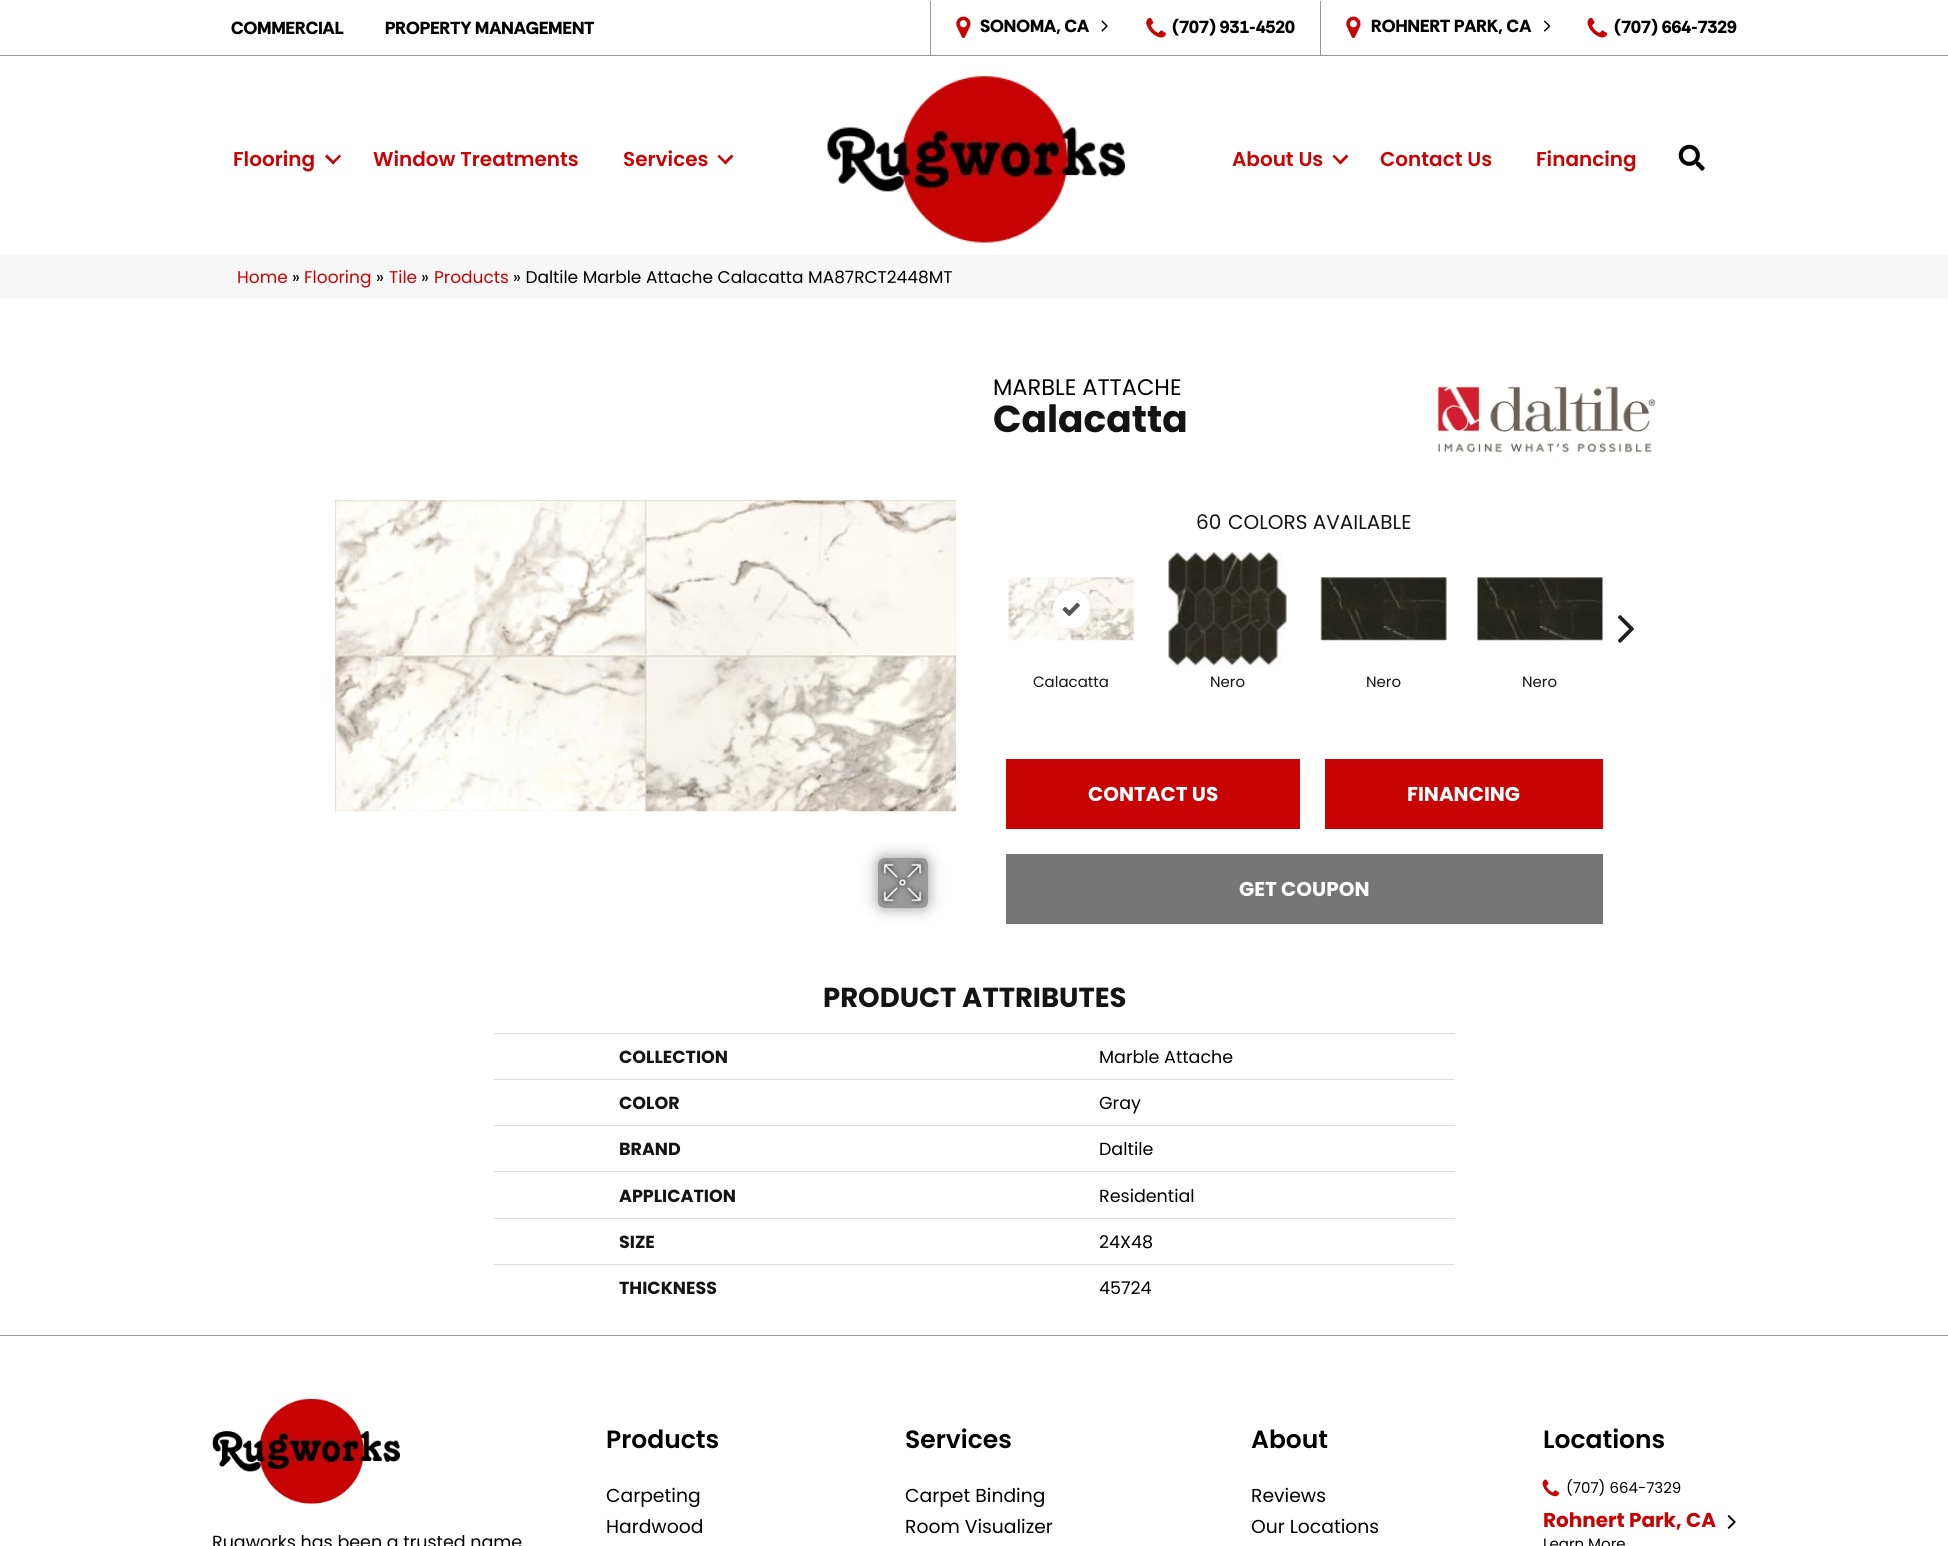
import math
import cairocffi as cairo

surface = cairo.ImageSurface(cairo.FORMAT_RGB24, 1948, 1546)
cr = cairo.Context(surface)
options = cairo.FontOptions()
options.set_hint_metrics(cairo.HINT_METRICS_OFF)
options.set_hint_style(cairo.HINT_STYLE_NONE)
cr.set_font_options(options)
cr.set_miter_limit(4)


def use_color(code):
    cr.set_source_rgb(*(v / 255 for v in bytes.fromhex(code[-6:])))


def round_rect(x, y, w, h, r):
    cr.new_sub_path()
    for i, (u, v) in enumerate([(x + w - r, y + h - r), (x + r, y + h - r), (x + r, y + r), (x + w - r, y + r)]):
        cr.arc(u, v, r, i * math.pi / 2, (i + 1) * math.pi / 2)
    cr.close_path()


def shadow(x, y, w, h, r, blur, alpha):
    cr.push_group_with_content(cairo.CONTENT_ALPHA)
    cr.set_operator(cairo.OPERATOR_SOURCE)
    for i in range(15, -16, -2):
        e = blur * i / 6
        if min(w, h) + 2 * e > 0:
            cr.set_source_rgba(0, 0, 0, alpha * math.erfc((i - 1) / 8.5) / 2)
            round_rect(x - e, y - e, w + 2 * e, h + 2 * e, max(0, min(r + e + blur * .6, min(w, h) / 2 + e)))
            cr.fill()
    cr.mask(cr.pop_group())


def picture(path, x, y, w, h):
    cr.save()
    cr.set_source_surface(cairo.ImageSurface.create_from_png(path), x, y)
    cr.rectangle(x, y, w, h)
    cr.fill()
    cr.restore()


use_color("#ffffff")
cr.paint()
use_color("#979797")
cr.rectangle(0, 55, 1948, 1)
cr.fill()
cr.select_font_face("Rethink Sans Thin")
cr.set_font_size(17.5)
use_color("#000000")
cr.move_to(231, 34)
cr.show_text("COMMERCIAL")
cr.move_to(385, 34)
cr.show_text("PROPERTY MANAGEMENT")
use_color("#979797")
cr.rectangle(930, 1, 1, 54)
cr.fill()
picture("img1.png", 956, 16, 15, 22)
use_color("#000000")
cr.move_to(980, 32)
cr.show_text("SONOMA, CA")
picture("img2.png", 1101, 20, 7, 12)
picture("img3.png", 1146, 17, 20, 21)
cr.move_to(1172, 33)
cr.show_text("(707) 931-4520")
use_color("#979797")
cr.rectangle(1320, 1, 1, 54)
cr.fill()
picture("img1.png", 1346, 16, 15, 22)
use_color("#000000")
cr.move_to(1371, 32)
cr.show_text("ROHNERT PARK, CA")
picture("img4.png", 1543, 20, 8, 12)
picture("img5.png", 1587, 17, 21, 21)
cr.move_to(1614, 33)
cr.show_text("(707) 664-7329")
cr.select_font_face("Poppins SemiBold")
cr.set_font_size(20)
use_color("#c70303")
cr.move_to(233, 166)
cr.show_text("Flooring")
cr.new_path()
cr.move_to(339.5, 154.5)
cr.line_to(341, 156.5)
cr.line_to(333, 164.5)
cr.line_to(331.5, 162.5)
cr.close_path()
cr.fill()
cr.new_path()
cr.move_to(327, 154.5)
cr.line_to(335, 162.5)
cr.line_to(333, 164.5)
cr.line_to(325, 156.5)
cr.close_path()
cr.fill()
cr.move_to(373, 166)
cr.show_text("Window Treatments")
cr.move_to(623, 166)
cr.show_text("Services")
cr.new_path()
cr.move_to(731.5, 154.5)
cr.line_to(733.5, 156.5)
cr.line_to(725.5, 164.5)
cr.line_to(723.5, 162.5)
cr.close_path()
cr.fill()
cr.new_path()
cr.move_to(719, 154.5)
cr.line_to(727, 162.5)
cr.line_to(725.5, 164.5)
cr.line_to(717.5, 156.5)
cr.close_path()
cr.fill()
picture("img6.png", 827, 76, 298, 167)
cr.move_to(1232, 166)
cr.show_text("About Us")
cr.new_path()
cr.move_to(1346.5, 154.5)
cr.line_to(1348.5, 156.5)
cr.line_to(1340.5, 164.5)
cr.line_to(1338.5, 162.5)
cr.close_path()
cr.fill()
cr.new_path()
cr.move_to(1334, 154.5)
cr.line_to(1342, 162.5)
cr.line_to(1340.5, 164.5)
cr.line_to(1332.5, 156.5)
cr.close_path()
cr.fill()
cr.move_to(1380, 166)
cr.show_text("Contact Us")
cr.move_to(1536, 166)
cr.show_text("Financing")
picture("img7.png", 1678, 144, 27, 27)
use_color("#f7f7f7")
cr.rectangle(0, 255, 1948, 44)
cr.fill()
cr.select_font_face("Poppins")
cr.set_font_size(17)
use_color("#c70303")
cr.move_to(237, 283)
cr.show_text("Home")
use_color("#000000")
cr.move_to(292, 283)
cr.show_text("»")
use_color("#c70303")
cr.move_to(304, 283)
cr.show_text("Flooring")
use_color("#000000")
cr.move_to(376, 283)
cr.show_text("»")
use_color("#c70303")
cr.move_to(389, 283)
cr.show_text("Tile")
use_color("#000000")
cr.move_to(421, 283)
cr.show_text("»")
use_color("#c70303")
cr.move_to(434, 283)
cr.show_text("Products")
use_color("#000000")
cr.move_to(513, 283)
cr.show_text("» Daltile Marble Attache Calacatta MA87RCT2448MT")
picture("img8.png", 335, 500, 622, 312)
cr.save()
cr.set_fill_rule(cairo.FILL_RULE_EVEN_ODD)
cr.new_path()
cr.move_to(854, 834)
cr.line_to(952, 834)
cr.line_to(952, 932)
cr.line_to(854, 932)
cr.close_path()
cr.move_to(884, 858)
cr.line_to(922, 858)
cr.curve_to(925.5, 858, 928, 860.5, 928, 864)
cr.line_to(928, 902)
cr.curve_to(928, 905.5, 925.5, 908, 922, 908)
cr.line_to(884, 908)
cr.curve_to(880.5, 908, 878, 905.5, 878, 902)
cr.line_to(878, 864)
cr.curve_to(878, 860.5, 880.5, 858, 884, 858)
cr.close_path()
cr.clip()
use_color("#000000")
shadow(878, 858, 50, 50, 6, 7.5, 0.41)
cr.restore()
cr.set_source_rgba(0, 0, 0, 0.4)
round_rect(878, 858, 50, 50, 6)
cr.fill()
picture("img9.png", 879, 859, 47, 47)
cr.set_font_size(22.5)
use_color("#000000")
cr.move_to(993, 395)
cr.show_text("MARBLE ATTACHE")
cr.select_font_face("Poppins", cairo.FONT_SLANT_NORMAL, cairo.FONT_WEIGHT_BOLD)
cr.set_font_size(37.5)
use_color("#141414")
cr.move_to(993, 432)
cr.show_text("Calacatta")
picture("img10.png", 1437, 385, 219, 68)
cr.select_font_face("Poppins")
cr.set_font_size(20)
cr.move_to(1196, 529)
cr.show_text("60")
cr.move_to(1228, 529)
cr.show_text("COLORS AVAILABLE")
picture("img11.png", 1617, 615, 17, 28)
picture("img12.png", 1008, 577, 127, 64)
use_color("#ffffff")
round_rect(1053, 590, 37, 38, 18.5)
cr.fill()
picture("img13.png", 1062, 602, 18, 15)
cr.set_font_size(15)
use_color("#141414")
cr.move_to(1033, 687)
cr.show_text("Calacatta")
picture("img14.png", 1168, 552, 119, 114)
cr.move_to(1210, 687)
cr.show_text("Nero")
picture("img15.png", 1320, 577, 127, 64)
cr.move_to(1366, 687)
cr.show_text("Nero")
picture("img16.png", 1477, 577, 126, 64)
cr.move_to(1522, 687)
cr.show_text("Nero")
use_color("#c70303")
cr.rectangle(1006, 759, 294, 70)
cr.fill()
cr.select_font_face("Poppins", cairo.FONT_SLANT_NORMAL, cairo.FONT_WEIGHT_BOLD)
cr.set_font_size(20)
use_color("#ffffff")
cr.move_to(1088, 801)
cr.show_text("CONTACT US")
use_color("#c70303")
cr.rectangle(1325, 759, 278, 70)
cr.fill()
use_color("#ffffff")
cr.move_to(1407, 801)
cr.show_text("FINANCING")
use_color("#767676")
cr.rectangle(1006, 854, 597, 70)
cr.fill()
use_color("#ffffff")
cr.move_to(1239, 896)
cr.show_text("GET COUPON")
cr.set_font_size(27.5)
use_color("#141414")
cr.move_to(823, 1007)
cr.show_text("PRODUCT ATTRIBUTES")
cr.set_font_size(17.5)
cr.move_to(619, 1063)
cr.show_text("COLLECTION")
use_color("#dddddd")
cr.rectangle(494, 1033, 961, 1)
cr.fill()
cr.select_font_face("Poppins")
use_color("#000000")
cr.move_to(1099, 1063)
cr.show_text("Marble Attache")
cr.select_font_face("Poppins", cairo.FONT_SLANT_NORMAL, cairo.FONT_WEIGHT_BOLD)
use_color("#141414")
cr.move_to(619, 1109)
cr.show_text("COLOR")
use_color("#dddddd")
cr.rectangle(494, 1079, 961, 1)
cr.fill()
cr.select_font_face("Poppins")
use_color("#000000")
cr.move_to(1099, 1109)
cr.show_text("Gray")
cr.select_font_face("Poppins", cairo.FONT_SLANT_NORMAL, cairo.FONT_WEIGHT_BOLD)
use_color("#141414")
cr.move_to(619, 1155)
cr.show_text("BRAND")
use_color("#dddddd")
cr.rectangle(494, 1125, 961, 1)
cr.fill()
cr.select_font_face("Poppins")
use_color("#000000")
cr.move_to(1099, 1155)
cr.show_text("Daltile")
cr.select_font_face("Poppins", cairo.FONT_SLANT_NORMAL, cairo.FONT_WEIGHT_BOLD)
use_color("#141414")
cr.move_to(619, 1202)
cr.show_text("APPLICATION")
use_color("#dddddd")
cr.rectangle(494, 1171, 961, 1)
cr.fill()
cr.select_font_face("Poppins")
use_color("#000000")
cr.move_to(1099, 1202)
cr.show_text("Residential")
cr.select_font_face("Poppins", cairo.FONT_SLANT_NORMAL, cairo.FONT_WEIGHT_BOLD)
use_color("#141414")
cr.move_to(619, 1248)
cr.show_text("SIZE")
use_color("#dddddd")
cr.rectangle(494, 1218, 961, 1)
cr.fill()
cr.select_font_face("Poppins")
use_color("#000000")
cr.move_to(1099, 1248)
cr.show_text("24X48")
cr.select_font_face("Poppins", cairo.FONT_SLANT_NORMAL, cairo.FONT_WEIGHT_BOLD)
use_color("#141414")
cr.move_to(619, 1294)
cr.show_text("THICKNESS")
use_color("#dddddd")
cr.rectangle(494, 1264, 961, 1)
cr.fill()
cr.select_font_face("Poppins")
use_color("#000000")
cr.move_to(1099, 1294)
cr.show_text("45724")
use_color("#979797")
cr.rectangle(0, 1335, 1948, 1)
cr.fill()
cr.select_font_face("Poppins SemiBold")
cr.set_font_size(25)
use_color("#000000")
cr.move_to(606, 1448)
cr.show_text("Products")
cr.select_font_face("Poppins")
cr.set_font_size(18.75)
cr.move_to(606, 1502)
cr.show_text("Carpeting")
cr.move_to(606, 1533)
cr.show_text("Hardwood")
cr.select_font_face("Poppins SemiBold")
cr.set_font_size(25)
cr.move_to(905, 1448)
cr.show_text("Services")
cr.select_font_face("Poppins")
cr.set_font_size(18.75)
cr.move_to(905, 1502)
cr.show_text("Carpet Binding")
cr.move_to(905, 1533)
cr.show_text("Room Visualizer")
cr.select_font_face("Poppins SemiBold")
cr.set_font_size(25)
cr.move_to(1251, 1448)
cr.show_text("About")
cr.select_font_face("Poppins")
cr.set_font_size(18.75)
cr.move_to(1251, 1502)
cr.show_text("Reviews")
cr.move_to(1251, 1533)
cr.show_text("Our Locations")
cr.select_font_face("Poppins SemiBold")
cr.set_font_size(25)
cr.move_to(1543, 1448)
cr.show_text("Locations")
picture("img17.png", 1542, 1479, 18, 18)
cr.select_font_face("Poppins")
cr.set_font_size(15)
cr.move_to(1566, 1493)
cr.show_text("(707) 664-7329")
cr.select_font_face("Poppins", cairo.FONT_SLANT_NORMAL, cairo.FONT_WEIGHT_BOLD)
cr.set_font_size(20)
use_color("#c70303")
cr.move_to(1543, 1527)
cr.show_text("Rohnert Park, CA")
picture("img18.png", 1727, 1515, 9, 14)
cr.select_font_face("Poppins")
cr.set_font_size(15)
use_color("#000000")
cr.move_to(1543, 1549)
cr.show_text("Learn More")
picture("img19.png", 212, 1398, 188, 106)
cr.set_font_size(17.5)
cr.move_to(212, 1548)
cr.show_text("Rugworks has been a trusted name")
surface.write_to_png("result.png")
